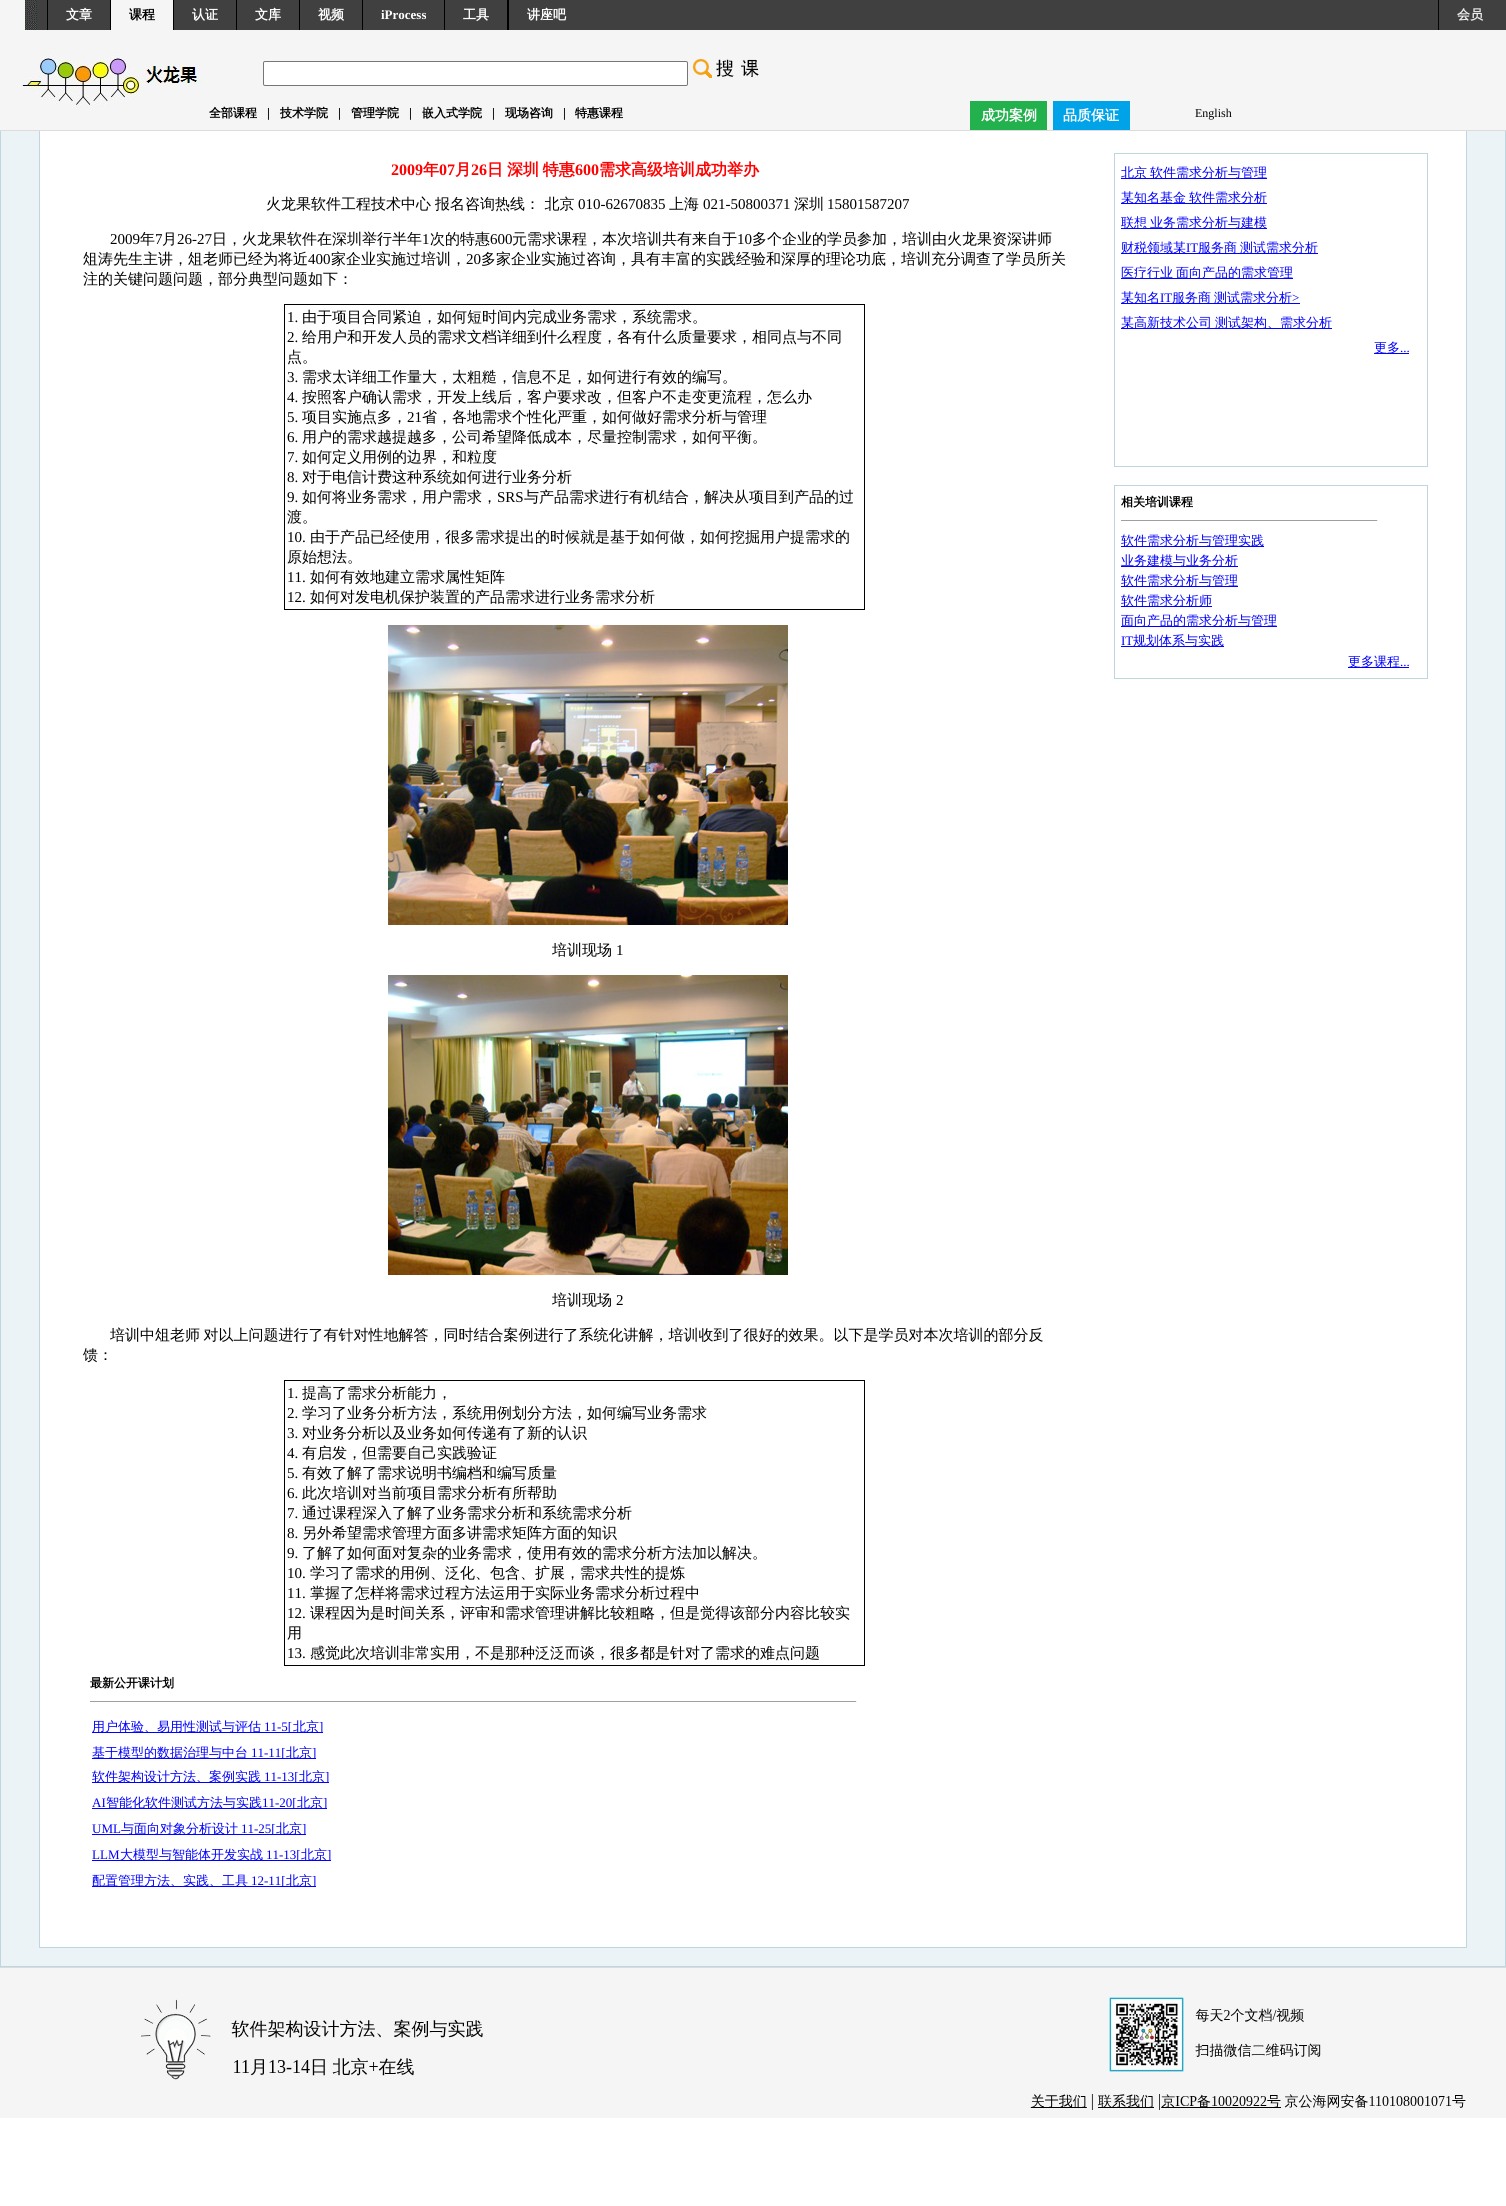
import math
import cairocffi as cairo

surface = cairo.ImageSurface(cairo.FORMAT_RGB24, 1506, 2206)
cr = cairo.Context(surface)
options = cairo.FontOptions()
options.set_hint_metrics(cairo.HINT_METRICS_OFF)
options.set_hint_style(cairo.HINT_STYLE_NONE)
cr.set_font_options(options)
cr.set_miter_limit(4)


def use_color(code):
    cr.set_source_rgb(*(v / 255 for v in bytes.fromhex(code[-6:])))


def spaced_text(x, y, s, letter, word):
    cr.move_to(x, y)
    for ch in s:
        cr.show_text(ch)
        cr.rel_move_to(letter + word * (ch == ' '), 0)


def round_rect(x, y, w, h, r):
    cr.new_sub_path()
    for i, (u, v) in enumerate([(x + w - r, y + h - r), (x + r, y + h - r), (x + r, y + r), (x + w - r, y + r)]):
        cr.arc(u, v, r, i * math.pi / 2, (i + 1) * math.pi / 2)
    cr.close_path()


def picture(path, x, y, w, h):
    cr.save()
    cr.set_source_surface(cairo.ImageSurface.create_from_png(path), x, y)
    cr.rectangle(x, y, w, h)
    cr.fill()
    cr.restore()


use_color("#ffffff")
cr.paint()
use_color("#dcdcdc")
cr.rectangle(0, 130, 1506, 1)
cr.fill()
use_color("#f5f5f5")
cr.rectangle(0, 0, 25, 130)
cr.fill()
use_color("#404040")
cr.rectangle(37, 0, 1469, 30)
cr.fill()
picture("img1.png", 25, 0, 12, 30)
use_color("#000000")
cr.rectangle(47, 0, 1, 30)
cr.fill()
cr.select_font_face("WenQuanYi Zen Hei", cairo.FONT_SLANT_NORMAL, cairo.FONT_WEIGHT_BOLD)
cr.set_font_size(13)
use_color("#ffffff")
cr.move_to(66, 19)
cr.show_text("文章")
use_color("#f5f5f5")
cr.rectangle(111, 0, 62, 30)
cr.fill()
use_color("#000000")
cr.rectangle(110, 0, 1, 30)
cr.fill()
cr.move_to(129, 19)
cr.show_text("课程")
cr.rectangle(173, 0, 1, 30)
cr.fill()
use_color("#ffffff")
cr.move_to(192, 19)
cr.show_text("认证")
use_color("#000000")
cr.rectangle(236, 0, 1, 30)
cr.fill()
use_color("#ffffff")
cr.move_to(255, 19)
cr.show_text("文库")
use_color("#000000")
cr.rectangle(299, 0, 1, 30)
cr.fill()
use_color("#ffffff")
cr.move_to(318, 19)
cr.show_text("视频")
use_color("#000000")
cr.rectangle(362, 0, 1, 30)
cr.fill()
cr.select_font_face("Liberation Serif", cairo.FONT_SLANT_NORMAL, cairo.FONT_WEIGHT_BOLD)
use_color("#ffffff")
cr.move_to(381, 19)
cr.show_text("iProcess")
use_color("#000000")
cr.rectangle(507, 0, 2, 30)
cr.fill()
cr.rectangle(444, 0, 1, 30)
cr.fill()
cr.select_font_face("WenQuanYi Zen Hei", cairo.FONT_SLANT_NORMAL, cairo.FONT_WEIGHT_BOLD)
use_color("#ffffff")
cr.move_to(463, 19)
cr.show_text("工具")
cr.move_to(527, 19)
cr.show_text("讲座吧")
use_color("#060606")
cr.rectangle(1438, 0, 1, 30)
cr.fill()
use_color("#ececec")
cr.move_to(1457, 19)
cr.show_text("会员")
use_color("#f5f5f5")
cr.rectangle(25, 30, 1481, 100)
cr.fill()
picture("img2.png", 20, 52, 185, 56)
use_color("#ffffff")
round_rect(263.5, 61.5, 424, 24, 1.5)
cr.fill_preserve()
use_color("#767676")
cr.set_line_width(1)
cr.stroke()
picture("img3.png", 693, 59, 66, 19)
cr.set_font_size(12)
use_color("#000000")
cr.move_to(209, 117)
cr.show_text("全部课程")
cr.select_font_face("Liberation Serif", cairo.FONT_SLANT_NORMAL, cairo.FONT_WEIGHT_BOLD)
cr.set_font_size(13)
cr.move_to(267, 117)
cr.show_text("|")
cr.select_font_face("WenQuanYi Zen Hei", cairo.FONT_SLANT_NORMAL, cairo.FONT_WEIGHT_BOLD)
cr.set_font_size(12)
cr.move_to(280, 117)
cr.show_text("技术学院")
cr.select_font_face("Liberation Serif", cairo.FONT_SLANT_NORMAL, cairo.FONT_WEIGHT_BOLD)
cr.set_font_size(13)
cr.move_to(338, 117)
cr.show_text("|")
cr.select_font_face("WenQuanYi Zen Hei", cairo.FONT_SLANT_NORMAL, cairo.FONT_WEIGHT_BOLD)
cr.set_font_size(12)
cr.move_to(351, 117)
cr.show_text("管理学院")
cr.select_font_face("Liberation Serif", cairo.FONT_SLANT_NORMAL, cairo.FONT_WEIGHT_BOLD)
cr.set_font_size(13)
cr.move_to(409, 117)
cr.show_text("|")
cr.select_font_face("WenQuanYi Zen Hei", cairo.FONT_SLANT_NORMAL, cairo.FONT_WEIGHT_BOLD)
cr.set_font_size(12)
cr.move_to(422, 117)
cr.show_text("嵌入式学院")
cr.select_font_face("Liberation Serif", cairo.FONT_SLANT_NORMAL, cairo.FONT_WEIGHT_BOLD)
cr.set_font_size(13)
cr.move_to(492, 117)
cr.show_text("|")
cr.select_font_face("WenQuanYi Zen Hei", cairo.FONT_SLANT_NORMAL, cairo.FONT_WEIGHT_BOLD)
cr.set_font_size(12)
cr.move_to(505, 117)
cr.show_text("现场咨询")
cr.select_font_face("Liberation Serif", cairo.FONT_SLANT_NORMAL, cairo.FONT_WEIGHT_BOLD)
cr.set_font_size(13)
cr.move_to(563, 117)
cr.show_text("|")
cr.select_font_face("WenQuanYi Zen Hei", cairo.FONT_SLANT_NORMAL, cairo.FONT_WEIGHT_BOLD)
cr.set_font_size(12)
cr.move_to(575, 117)
cr.show_text("特惠课程")
use_color("#22b14c")
cr.rectangle(970, 101, 77, 29)
cr.fill()
cr.set_font_size(14)
use_color("#ffffff")
cr.move_to(981, 120)
cr.show_text("成功案例")
use_color("#00a2e8")
cr.rectangle(1053, 101, 77, 29)
cr.fill()
use_color("#ffffff")
cr.move_to(1063, 120)
cr.show_text("品质保证")
cr.select_font_face("Liberation Serif")
cr.set_font_size(12)
use_color("#000000")
cr.move_to(1195, 117)
cr.show_text("English")
use_color("#ecf3f6")
cr.rectangle(1, 131, 1504, 1835)
cr.fill()
use_color("#bed6e0")
cr.rectangle(1505, 131, 1, 1836)
cr.fill()
cr.rectangle(0, 1966, 1506, 1)
cr.fill()
cr.rectangle(0, 131, 1, 1836)
cr.fill()
cr.rectangle(1466, 131, 1, 1817)
cr.fill()
cr.rectangle(39, 1947, 1428, 1)
cr.fill()
cr.rectangle(39, 131, 1, 1817)
cr.fill()
use_color("#ffffff")
cr.rectangle(40, 131, 1426, 1816)
cr.fill()
cr.select_font_face("Liberation Serif", cairo.FONT_SLANT_NORMAL, cairo.FONT_WEIGHT_BOLD)
cr.set_font_size(16)
use_color("#ff0000")
cr.move_to(391, 175)
cr.show_text("2009")
cr.select_font_face("WenQuanYi Zen Hei", cairo.FONT_SLANT_NORMAL, cairo.FONT_WEIGHT_BOLD)
cr.move_to(423, 175)
cr.show_text("年")
cr.select_font_face("Liberation Serif", cairo.FONT_SLANT_NORMAL, cairo.FONT_WEIGHT_BOLD)
cr.move_to(439, 175)
cr.show_text("07")
cr.select_font_face("WenQuanYi Zen Hei", cairo.FONT_SLANT_NORMAL, cairo.FONT_WEIGHT_BOLD)
cr.move_to(455, 175)
cr.show_text("月")
cr.select_font_face("Liberation Serif", cairo.FONT_SLANT_NORMAL, cairo.FONT_WEIGHT_BOLD)
cr.move_to(471, 175)
cr.show_text("26")
cr.select_font_face("WenQuanYi Zen Hei", cairo.FONT_SLANT_NORMAL, cairo.FONT_WEIGHT_BOLD)
cr.move_to(487, 175)
cr.show_text("日")
spaced_text(507, 175, "深圳 特惠", 0, -1)
cr.select_font_face("Liberation Serif", cairo.FONT_SLANT_NORMAL, cairo.FONT_WEIGHT_BOLD)
cr.move_to(575, 175)
cr.show_text("600")
cr.select_font_face("WenQuanYi Zen Hei", cairo.FONT_SLANT_NORMAL, cairo.FONT_WEIGHT_BOLD)
cr.move_to(599, 175)
cr.show_text("需求高级培训成功举办")
cr.select_font_face("WenQuanYi Zen Hei Medium")
cr.set_font_size(15)
use_color("#000000")
cr.move_to(266, 209)
cr.show_text("火龙果软件工程技术中心")
cr.move_to(435, 209)
cr.show_text("报名咨询热线： 北京")
cr.select_font_face("Liberation Serif")
cr.move_to(578, 209)
cr.show_text("010-62670835")
cr.select_font_face("WenQuanYi Zen Hei Medium")
cr.move_to(669, 209)
cr.show_text("上海")
cr.select_font_face("Liberation Serif")
cr.move_to(703, 209)
cr.show_text("021-50800371")
cr.select_font_face("WenQuanYi Zen Hei Medium")
cr.move_to(794, 209)
cr.show_text("深圳")
cr.select_font_face("Liberation Serif")
cr.move_to(827, 209)
cr.show_text("15801587207")
cr.move_to(110, 244)
cr.show_text("2009")
cr.select_font_face("WenQuanYi Zen Hei Medium")
cr.move_to(140, 244)
cr.show_text("年")
cr.select_font_face("Liberation Serif")
cr.move_to(155, 244)
cr.show_text("7")
cr.select_font_face("WenQuanYi Zen Hei Medium")
cr.move_to(162, 244)
cr.show_text("月")
cr.select_font_face("Liberation Serif")
cr.move_to(177, 244)
cr.show_text("26-27")
cr.select_font_face("WenQuanYi Zen Hei Medium")
cr.move_to(212, 244)
cr.show_text("日，火龙果软件在深圳举行半年")
cr.select_font_face("Liberation Serif")
cr.move_to(422, 244)
cr.show_text("1")
cr.select_font_face("WenQuanYi Zen Hei Medium")
cr.move_to(430, 244)
cr.show_text("次的特惠")
cr.select_font_face("Liberation Serif")
cr.move_to(490, 244)
cr.show_text("600")
cr.select_font_face("WenQuanYi Zen Hei Medium")
cr.move_to(512, 244)
cr.show_text("元需求课程，本次培训共有来自于")
cr.select_font_face("Liberation Serif")
cr.move_to(737, 244)
cr.show_text("10")
cr.select_font_face("WenQuanYi Zen Hei Medium")
cr.move_to(752, 244)
cr.show_text("多个企业的学员参加，培训由火龙果资深讲师")
cr.move_to(83, 264)
cr.show_text("俎涛先生主讲，俎老师已经为将近")
cr.select_font_face("Liberation Serif")
cr.move_to(308, 264)
cr.show_text("400")
cr.select_font_face("WenQuanYi Zen Hei Medium")
cr.move_to(331, 264)
cr.show_text("家企业实施过培训，")
cr.select_font_face("Liberation Serif")
cr.move_to(466, 264)
cr.show_text("20")
cr.select_font_face("WenQuanYi Zen Hei Medium")
cr.move_to(481, 264)
cr.show_text("多家企业实施过咨询，具有丰富的实践经验和深厚的理论功底，培训充分调查了学员所关")
cr.move_to(83, 284)
cr.show_text("注的关键问题问题，部分典型问题如下：")
cr.rectangle(284, 304, 581, 306)
cr.fill()
use_color("#ffffff")
cr.rectangle(285, 305, 579, 304)
cr.fill()
cr.select_font_face("Liberation Serif")
use_color("#000000")
cr.move_to(287, 322)
cr.show_text("1.")
cr.select_font_face("WenQuanYi Zen Hei Medium")
cr.move_to(302, 322)
cr.show_text("由于项目合同紧迫，如何短时间内完成业务需求，系统需求。")
cr.select_font_face("Liberation Serif")
cr.move_to(287, 342)
cr.show_text("2.")
cr.select_font_face("WenQuanYi Zen Hei Medium")
cr.move_to(302, 342)
cr.show_text("给用户和开发人员的需求文档详细到什么程度，各有什么质量要求，相同点与不同")
cr.move_to(287, 362)
cr.show_text("点。")
cr.select_font_face("Liberation Serif")
cr.move_to(287, 382)
cr.show_text("3.")
cr.select_font_face("WenQuanYi Zen Hei Medium")
cr.move_to(302, 382)
cr.show_text("需求太详细工作量大，太粗糙，信息不足，如何进行有效的编写。")
cr.select_font_face("Liberation Serif")
cr.move_to(287, 402)
cr.show_text("4.")
cr.select_font_face("WenQuanYi Zen Hei Medium")
cr.move_to(302, 402)
cr.show_text("按照客户确认需求，开发上线后，客户要求改，但客户不走变更流程，怎么办")
cr.select_font_face("Liberation Serif")
cr.move_to(287, 422)
cr.show_text("5.")
cr.select_font_face("WenQuanYi Zen Hei Medium")
cr.move_to(302, 422)
cr.show_text("项目实施点多，")
cr.select_font_face("Liberation Serif")
cr.move_to(407, 422)
cr.show_text("21")
cr.select_font_face("WenQuanYi Zen Hei Medium")
cr.move_to(422, 422)
cr.show_text("省，各地需求个性化严重，如何做好需求分析与管理")
cr.select_font_face("Liberation Serif")
cr.move_to(287, 442)
cr.show_text("6.")
cr.select_font_face("WenQuanYi Zen Hei Medium")
cr.move_to(302, 442)
cr.show_text("用户的需求越提越多，公司希望降低成本，尽量控制需求，如何平衡。")
cr.select_font_face("Liberation Serif")
cr.move_to(287, 462)
cr.show_text("7.")
cr.select_font_face("WenQuanYi Zen Hei Medium")
cr.move_to(302, 462)
cr.show_text("如何定义用例的边界，和粒度")
cr.select_font_face("Liberation Serif")
cr.move_to(287, 482)
cr.show_text("8.")
cr.select_font_face("WenQuanYi Zen Hei Medium")
cr.move_to(302, 482)
cr.show_text("对于电信计费这种系统如何进行业务分析")
cr.select_font_face("Liberation Serif")
cr.move_to(287, 502)
cr.show_text("9.")
cr.select_font_face("WenQuanYi Zen Hei Medium")
cr.move_to(302, 502)
cr.show_text("如何将业务需求，用户需求，")
cr.select_font_face("Liberation Serif")
cr.move_to(497, 502)
cr.show_text("SRS")
cr.select_font_face("WenQuanYi Zen Hei Medium")
cr.move_to(524, 502)
cr.show_text("与产品需求进行有机结合，解决从项目到产品的过")
cr.move_to(287, 522)
cr.show_text("渡。")
cr.select_font_face("Liberation Serif")
cr.move_to(287, 542)
cr.show_text("10.")
cr.select_font_face("WenQuanYi Zen Hei Medium")
cr.move_to(310, 542)
cr.show_text("由于产品已经使用，很多需求提出的时候就是基于如何做，如何挖掘用户提需求的")
cr.move_to(287, 562)
cr.show_text("原始想法。")
cr.select_font_face("Liberation Serif")
cr.move_to(287, 582)
cr.show_text("11.")
cr.select_font_face("WenQuanYi Zen Hei Medium")
cr.move_to(310, 582)
cr.show_text("如何有效地建立需求属性矩阵")
cr.select_font_face("Liberation Serif")
cr.move_to(287, 602)
cr.show_text("12.")
cr.select_font_face("WenQuanYi Zen Hei Medium")
cr.move_to(310, 602)
cr.show_text("如何对发电机保护装置的产品需求进行业务需求分析")
picture("img4.png", 388, 625, 400, 300)
cr.move_to(552, 955)
cr.show_text("培训现场")
cr.select_font_face("Liberation Serif")
cr.move_to(616, 955)
cr.show_text("1")
picture("img5.png", 388, 975, 400, 300)
cr.select_font_face("WenQuanYi Zen Hei Medium")
cr.move_to(552, 1305)
cr.show_text("培训现场")
cr.select_font_face("Liberation Serif")
cr.move_to(616, 1305)
cr.show_text("2")
cr.select_font_face("WenQuanYi Zen Hei Medium")
spaced_text(110, 1340, "培训中俎老师 对以上问题进行了有针对性地解答，同时结合案例进行了系统化讲解，培训收到了很好的效果。以下是学员对本次培训的部分反", 0, -1)
cr.move_to(83, 1360)
cr.show_text("馈：")
cr.rectangle(284, 1380, 581, 286)
cr.fill()
use_color("#ffffff")
cr.rectangle(285, 1381, 579, 284)
cr.fill()
cr.select_font_face("Liberation Serif")
use_color("#000000")
cr.move_to(287, 1398)
cr.show_text("1.")
cr.select_font_face("WenQuanYi Zen Hei Medium")
cr.move_to(302, 1398)
cr.show_text("提高了需求分析能力，")
cr.select_font_face("Liberation Serif")
cr.move_to(287, 1418)
cr.show_text("2.")
cr.select_font_face("WenQuanYi Zen Hei Medium")
cr.move_to(302, 1418)
cr.show_text("学习了业务分析方法，系统用例划分方法，如何编写业务需求")
cr.select_font_face("Liberation Serif")
cr.move_to(287, 1438)
cr.show_text("3.")
cr.select_font_face("WenQuanYi Zen Hei Medium")
cr.move_to(302, 1438)
cr.show_text("对业务分析以及业务如何传递有了新的认识")
cr.select_font_face("Liberation Serif")
cr.move_to(287, 1458)
cr.show_text("4.")
cr.select_font_face("WenQuanYi Zen Hei Medium")
cr.move_to(302, 1458)
cr.show_text("有启发，但需要自己实践验证")
cr.select_font_face("Liberation Serif")
cr.move_to(287, 1478)
cr.show_text("5.")
cr.select_font_face("WenQuanYi Zen Hei Medium")
cr.move_to(302, 1478)
cr.show_text("有效了解了需求说明书编档和编写质量")
cr.select_font_face("Liberation Serif")
cr.move_to(287, 1498)
cr.show_text("6.")
cr.select_font_face("WenQuanYi Zen Hei Medium")
cr.move_to(302, 1498)
cr.show_text("此次培训对当前项目需求分析有所帮助")
cr.select_font_face("Liberation Serif")
cr.move_to(287, 1518)
cr.show_text("7.")
cr.select_font_face("WenQuanYi Zen Hei Medium")
cr.move_to(302, 1518)
cr.show_text("通过课程深入了解了业务需求分析和系统需求分析")
cr.select_font_face("Liberation Serif")
cr.move_to(287, 1538)
cr.show_text("8.")
cr.select_font_face("WenQuanYi Zen Hei Medium")
cr.move_to(302, 1538)
cr.show_text("另外希望需求管理方面多讲需求矩阵方面的知识")
cr.select_font_face("Liberation Serif")
cr.move_to(287, 1558)
cr.show_text("9.")
cr.select_font_face("WenQuanYi Zen Hei Medium")
cr.move_to(302, 1558)
cr.show_text("了解了如何面对复杂的业务需求，使用有效的需求分析方法加以解决。")
cr.select_font_face("Liberation Serif")
cr.move_to(287, 1578)
cr.show_text("10.")
cr.select_font_face("WenQuanYi Zen Hei Medium")
cr.move_to(310, 1578)
cr.show_text("学习了需求的用例、泛化、包含、扩展，需求共性的提炼")
cr.select_font_face("Liberation Serif")
cr.move_to(287, 1598)
cr.show_text("11.")
cr.select_font_face("WenQuanYi Zen Hei Medium")
cr.move_to(310, 1598)
cr.show_text("掌握了怎样将需求过程方法运用于实际业务需求分析过程中")
cr.select_font_face("Liberation Serif")
cr.move_to(287, 1618)
cr.show_text("12.")
cr.select_font_face("WenQuanYi Zen Hei Medium")
cr.move_to(310, 1618)
cr.show_text("课程因为是时间关系，评审和需求管理讲解比较粗略，但是觉得该部分内容比较实")
cr.move_to(287, 1638)
cr.show_text("用")
cr.select_font_face("Liberation Serif")
cr.move_to(287, 1658)
cr.show_text("13.")
cr.select_font_face("WenQuanYi Zen Hei Medium")
cr.move_to(310, 1658)
cr.show_text("感觉此次培训非常实用，不是那种泛泛而谈，很多都是针对了需求的难点问题")
cr.select_font_face("WenQuanYi Zen Hei", cairo.FONT_SLANT_NORMAL, cairo.FONT_WEIGHT_BOLD)
cr.set_font_size(12)
cr.move_to(90, 1687)
cr.show_text("最新公开课计划")
use_color("#9f9f9f")
cr.rectangle(90, 1701, 767, 1)
cr.fill()
use_color("#eeeeee")
cr.rectangle(856, 1701, 1, 1)
cr.fill()
use_color("#0000ff")
cr.rectangle(92, 1732, 231, 1)
cr.fill()
cr.select_font_face("WenQuanYi Zen Hei Medium")
cr.set_font_size(13)
cr.move_to(92, 1731)
cr.show_text("用户体验、易用性测试与评估")
cr.select_font_face("Liberation Serif")
cr.move_to(264, 1731)
cr.show_text("11-5[")
cr.select_font_face("WenQuanYi Zen Hei Medium")
cr.move_to(293, 1731)
cr.show_text("北京")
cr.select_font_face("Liberation Serif")
cr.move_to(319, 1731)
cr.show_text("]")
cr.rectangle(92, 1758, 224, 1)
cr.fill()
cr.select_font_face("WenQuanYi Zen Hei Medium")
cr.move_to(92, 1757)
cr.show_text("基于模型的数据治理与中台")
cr.select_font_face("Liberation Serif")
cr.move_to(251, 1757)
cr.show_text("11-11[")
cr.select_font_face("WenQuanYi Zen Hei Medium")
cr.move_to(286, 1757)
cr.show_text("北京")
cr.select_font_face("Liberation Serif")
cr.move_to(312, 1757)
cr.show_text("]")
cr.rectangle(92, 1782, 237, 1)
cr.fill()
cr.select_font_face("WenQuanYi Zen Hei Medium")
cr.move_to(92, 1781)
cr.show_text("软件架构设计方法、案例实践")
cr.select_font_face("Liberation Serif")
cr.move_to(264, 1781)
cr.show_text("11-13[")
cr.select_font_face("WenQuanYi Zen Hei Medium")
cr.move_to(299, 1781)
cr.show_text("北京")
cr.select_font_face("Liberation Serif")
cr.move_to(325, 1781)
cr.show_text("]")
cr.move_to(92, 1807)
cr.show_text("AI")
cr.rectangle(92, 1808, 235, 1)
cr.fill()
cr.select_font_face("WenQuanYi Zen Hei Medium")
cr.move_to(106, 1807)
cr.show_text("智能化软件测试方法与实践")
cr.select_font_face("Liberation Serif")
cr.move_to(262, 1807)
cr.show_text("11-20[")
cr.select_font_face("WenQuanYi Zen Hei Medium")
cr.move_to(297, 1807)
cr.show_text("北京")
cr.select_font_face("Liberation Serif")
cr.move_to(323, 1807)
cr.show_text("]")
cr.move_to(92, 1833)
cr.show_text("UML")
cr.rectangle(92, 1834, 214, 1)
cr.fill()
cr.select_font_face("WenQuanYi Zen Hei Medium")
cr.move_to(121, 1833)
cr.show_text("与面向对象分析设计")
cr.select_font_face("Liberation Serif")
cr.move_to(241, 1833)
cr.show_text("11-25[")
cr.select_font_face("WenQuanYi Zen Hei Medium")
cr.move_to(276, 1833)
cr.show_text("北京")
cr.select_font_face("Liberation Serif")
cr.move_to(302, 1833)
cr.show_text("]")
cr.move_to(92, 1859)
cr.show_text("LLM")
cr.rectangle(92, 1860, 239, 1)
cr.fill()
cr.select_font_face("WenQuanYi Zen Hei Medium")
cr.move_to(120, 1859)
cr.show_text("大模型与智能体开发实战")
cr.select_font_face("Liberation Serif")
cr.move_to(266, 1859)
cr.show_text("11-13[")
cr.select_font_face("WenQuanYi Zen Hei Medium")
cr.move_to(301, 1859)
cr.show_text("北京")
cr.select_font_face("Liberation Serif")
cr.move_to(327, 1859)
cr.show_text("]")
cr.rectangle(92, 1886, 224, 1)
cr.fill()
cr.select_font_face("WenQuanYi Zen Hei Medium")
cr.move_to(92, 1885)
cr.show_text("配置管理方法、实践、工具")
cr.select_font_face("Liberation Serif")
cr.move_to(251, 1885)
cr.show_text("12-11[")
cr.select_font_face("WenQuanYi Zen Hei Medium")
cr.move_to(286, 1885)
cr.show_text("北京")
cr.select_font_face("Liberation Serif")
cr.move_to(312, 1885)
cr.show_text("]")
use_color("#bed6e0")
cr.rectangle(1114, 153, 314, 314)
cr.fill()
use_color("#ffffff")
cr.rectangle(1115, 154, 312, 312)
cr.fill()
use_color("#0000ff")
cr.rectangle(1121, 178, 146, 1)
cr.fill()
cr.select_font_face("WenQuanYi Zen Hei Medium")
cr.move_to(1121, 177)
cr.show_text("北京")
cr.move_to(1150, 177)
cr.show_text("软件需求分析与管理")
cr.rectangle(1121, 203, 146, 1)
cr.fill()
cr.move_to(1121, 202)
cr.show_text("某知名基金")
cr.move_to(1189, 202)
cr.show_text("软件需求分析")
cr.rectangle(1121, 228, 146, 1)
cr.fill()
cr.move_to(1121, 227)
cr.show_text("联想")
cr.move_to(1150, 227)
cr.show_text("业务需求分析与建模")
cr.rectangle(1121, 253, 197, 1)
cr.fill()
cr.move_to(1121, 252)
cr.show_text("财税领域某")
cr.select_font_face("Liberation Serif")
cr.move_to(1186, 252)
cr.show_text("IT")
cr.select_font_face("WenQuanYi Zen Hei Medium")
cr.move_to(1198, 252)
cr.show_text("服务商")
cr.move_to(1240, 252)
cr.show_text("测试需求分析")
cr.rectangle(1121, 278, 172, 1)
cr.fill()
cr.move_to(1121, 277)
cr.show_text("医疗行业")
cr.move_to(1176, 277)
cr.show_text("面向产品的需求管理")
cr.rectangle(1121, 303, 179, 1)
cr.fill()
cr.move_to(1121, 302)
cr.show_text("某知名")
cr.select_font_face("Liberation Serif")
cr.move_to(1160, 302)
cr.show_text("IT")
cr.select_font_face("WenQuanYi Zen Hei Medium")
cr.move_to(1172, 302)
cr.show_text("服务商")
cr.move_to(1214, 302)
cr.show_text("测试需求分析")
cr.select_font_face("Liberation Serif")
cr.move_to(1292, 302)
cr.show_text(">")
cr.rectangle(1121, 328, 211, 1)
cr.fill()
cr.select_font_face("WenQuanYi Zen Hei Medium")
cr.move_to(1121, 327)
cr.show_text("某高新技术公司")
cr.move_to(1215, 327)
cr.show_text("测试架构、需求分析")
cr.rectangle(1374, 353, 35, 1)
cr.fill()
cr.move_to(1374, 352)
cr.show_text("更多")
cr.select_font_face("Liberation Serif")
cr.move_to(1400, 352)
cr.show_text("...")
use_color("#bed6e0")
cr.rectangle(1114, 485, 314, 194)
cr.fill()
use_color("#ffffff")
cr.rectangle(1115, 486, 312, 192)
cr.fill()
cr.select_font_face("WenQuanYi Zen Hei", cairo.FONT_SLANT_NORMAL, cairo.FONT_WEIGHT_BOLD)
cr.set_font_size(12)
use_color("#000000")
cr.move_to(1121, 506)
cr.show_text("相关培训课程")
use_color("#9f9f9f")
cr.rectangle(1121, 520, 257, 1)
cr.fill()
use_color("#eeeeee")
cr.rectangle(1377, 520, 1, 1)
cr.fill()
use_color("#0000ff")
cr.rectangle(1121, 546, 143, 1)
cr.fill()
cr.select_font_face("WenQuanYi Zen Hei Medium")
cr.set_font_size(13)
cr.move_to(1121, 545)
cr.show_text("软件需求分析与管理实践")
cr.rectangle(1121, 566, 117, 1)
cr.fill()
cr.move_to(1121, 565)
cr.show_text("业务建模与业务分析")
cr.rectangle(1121, 586, 117, 1)
cr.fill()
cr.move_to(1121, 585)
cr.show_text("软件需求分析与管理")
cr.rectangle(1121, 606, 91, 1)
cr.fill()
cr.move_to(1121, 605)
cr.show_text("软件需求分析师")
cr.rectangle(1121, 626, 156, 1)
cr.fill()
cr.move_to(1121, 625)
cr.show_text("面向产品的需求分析与管理")
cr.select_font_face("Liberation Serif")
cr.move_to(1121, 645)
cr.show_text("IT")
cr.rectangle(1121, 646, 103, 1)
cr.fill()
cr.select_font_face("WenQuanYi Zen Hei Medium")
cr.move_to(1133, 645)
cr.show_text("规划体系与实践")
cr.rectangle(1348, 667, 61, 1)
cr.fill()
cr.move_to(1348, 666)
cr.show_text("更多课程")
cr.select_font_face("Liberation Serif")
cr.move_to(1400, 666)
cr.show_text("...")
use_color("#f5f5f5")
cr.rectangle(0, 1968, 1506, 150)
cr.fill()
use_color("#dcdcdc")
cr.rectangle(0, 1967, 1506, 1)
cr.fill()
picture("img6.png", 141, 1997, 1325, 113)
surface.write_to_png("result.png")
